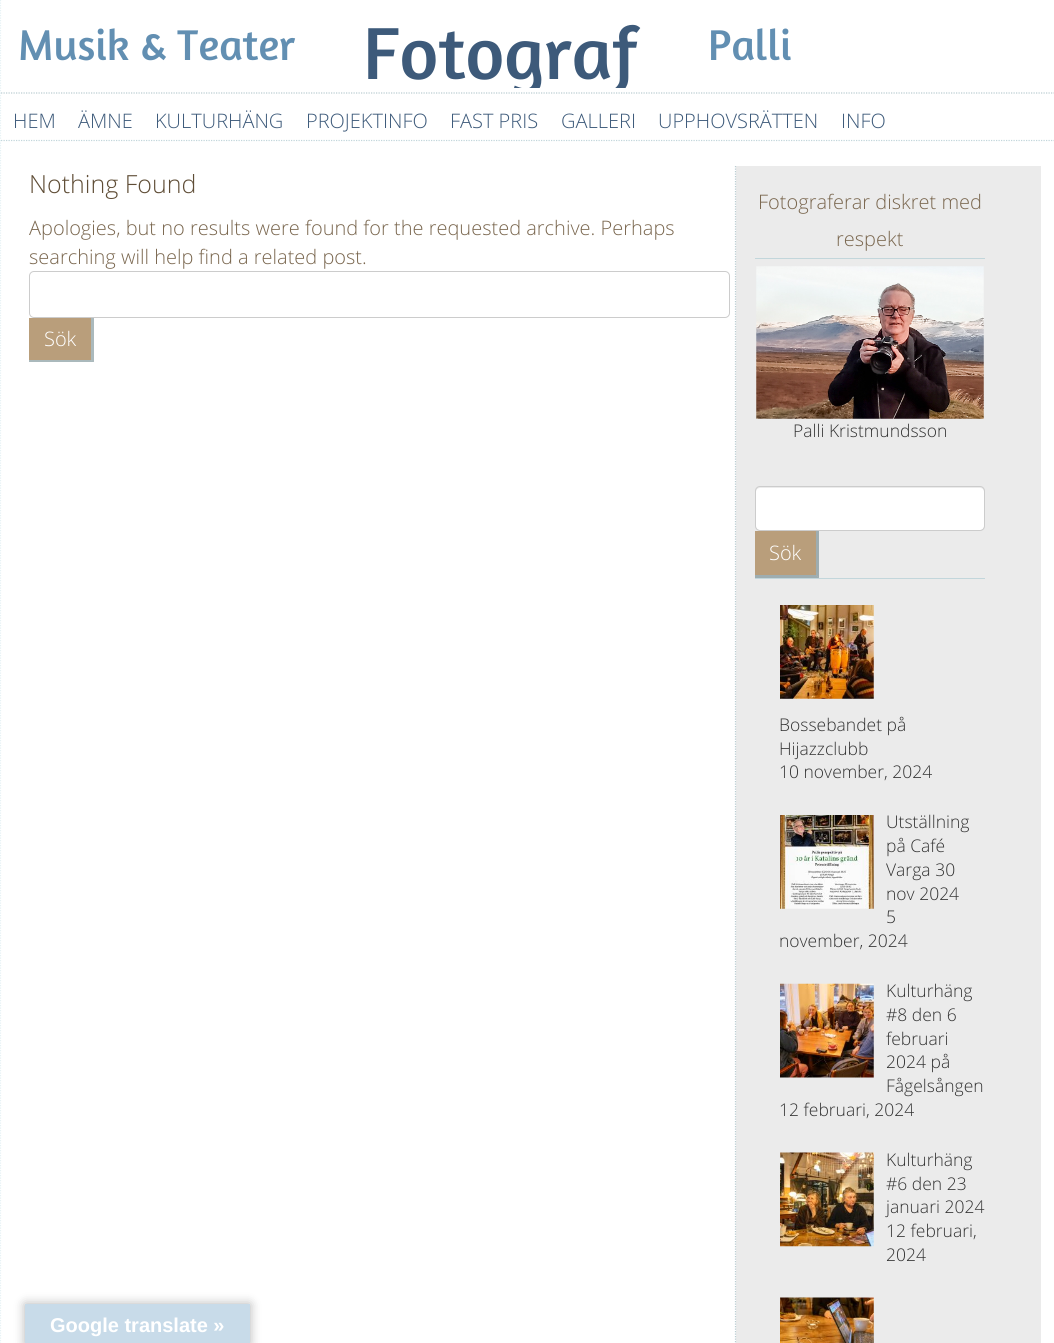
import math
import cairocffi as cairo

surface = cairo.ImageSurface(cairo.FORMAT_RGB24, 1054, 1343)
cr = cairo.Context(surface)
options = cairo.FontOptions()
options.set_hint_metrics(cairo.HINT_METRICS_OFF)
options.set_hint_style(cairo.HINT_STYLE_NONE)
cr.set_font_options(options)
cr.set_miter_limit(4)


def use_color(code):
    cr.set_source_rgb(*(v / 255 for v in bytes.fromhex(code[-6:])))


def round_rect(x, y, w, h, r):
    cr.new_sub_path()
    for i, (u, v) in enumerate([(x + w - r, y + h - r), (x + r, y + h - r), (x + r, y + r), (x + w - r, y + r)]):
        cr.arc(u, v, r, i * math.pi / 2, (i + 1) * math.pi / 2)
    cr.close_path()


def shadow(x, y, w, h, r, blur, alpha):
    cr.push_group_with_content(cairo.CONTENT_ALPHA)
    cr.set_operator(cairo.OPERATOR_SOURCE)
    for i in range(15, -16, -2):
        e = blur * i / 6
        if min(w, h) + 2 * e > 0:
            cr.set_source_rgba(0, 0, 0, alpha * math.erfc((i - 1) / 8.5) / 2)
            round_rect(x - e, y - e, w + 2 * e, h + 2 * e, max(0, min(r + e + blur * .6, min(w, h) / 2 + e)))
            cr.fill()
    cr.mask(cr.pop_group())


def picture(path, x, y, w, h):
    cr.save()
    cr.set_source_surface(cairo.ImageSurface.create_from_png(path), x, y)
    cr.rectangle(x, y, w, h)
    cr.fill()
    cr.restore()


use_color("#ffffff")
cr.paint()
cr.new_path()
cr.move_to(0.5, 0)
cr.line_to(0.5, 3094)
use_color("#e6f2f5")
cr.set_line_width(1.2)
cr.set_dash([1.25, 1.25])
cr.stroke()
cr.new_path()
cr.move_to(1, 93)
cr.line_to(1054, 93)
use_color("#b9ccd1")
cr.stroke()
cr.select_font_face("Amaranth")
cr.set_font_size(43.75)
use_color("#628fb2")
cr.move_to(18, 60)
cr.show_text("Musik & Teater")
cr.save()
cr.rectangle(1, 13, 928, 75)
cr.clip()
cr.set_font_size(75)
use_color("#3d5a7a")
cr.move_to(363, 79)
cr.show_text("Fotograf")
cr.restore()
cr.move_to(708, 60)
cr.show_text("Palli")
cr.new_path()
cr.move_to(1, 140.5)
cr.line_to(1054, 140.5)
use_color("#c2d6db")
cr.stroke()
cr.select_font_face("Open Sans Light")
cr.set_font_size(20)
use_color("#3d5a7a")
cr.move_to(13, 128)
cr.show_text("HEM")
cr.move_to(78, 128)
cr.show_text("ÄMNE")
cr.move_to(155, 128)
cr.show_text("KULTURHÄNG")
cr.move_to(306, 128)
cr.show_text("PROJEKTINFO")
cr.move_to(450, 128)
cr.show_text("FAST PRIS")
cr.move_to(561, 128)
cr.show_text("GALLERI")
cr.move_to(658, 128)
cr.show_text("UPPHOVSRÄTTEN")
cr.move_to(841, 128)
cr.show_text("INFO")
cr.set_font_size(25)
use_color("#5f4d36")
cr.move_to(29, 193)
cr.show_text("Nothing Found")
cr.set_font_size(20)
use_color("#7a674f")
cr.move_to(29, 235)
cr.show_text("Apologies, but no results were found for the requested archive. Perhaps")
cr.move_to(29, 264)
cr.show_text("searching will help find a related post.")
round_rect(29.5, 271.5, 700, 46, 4.5)
use_color("#cccccc")
cr.set_line_width(1)
cr.set_dash([])
cr.stroke()
use_color("#b99e7b")
cr.rectangle(29, 318, 62, 42)
cr.fill()
use_color("#abb9bc")
cr.new_path()
cr.move_to(94, 318)
cr.line_to(94, 362)
cr.line_to(91, 360)
cr.line_to(91, 318)
cr.close_path()
cr.fill()
cr.set_source_rgba(0.129, 0.278, 0.31, 0.38)
cr.new_path()
cr.move_to(94, 362)
cr.line_to(29, 362)
cr.line_to(29, 360)
cr.line_to(91, 360)
cr.close_path()
cr.fill()
use_color("#ffffff")
cr.move_to(44, 346)
cr.show_text("Sök")
use_color("#ebebeb")
cr.rectangle(736, 166, 305, 1177)
cr.fill()
cr.new_path()
cr.move_to(735.5, 166)
cr.line_to(735.5, 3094)
use_color("#b9ccd1")
cr.set_line_width(1.2)
cr.set_dash([1.25, 1.25])
cr.stroke()
use_color("#c2d6db")
cr.rectangle(755, 258, 230, 1)
cr.fill()
use_color("#7a674f")
cr.move_to(758, 209)
cr.show_text("Fotograferar diskret med")
cr.move_to(836, 246)
cr.show_text("respekt")
picture("img1.png", 756, 266, 228, 153)
cr.set_font_size(17.5)
use_color("#333333")
cr.move_to(793, 437)
cr.show_text("Palli Kristmundsson")
use_color("#c2d6db")
cr.rectangle(755, 578, 230, 1)
cr.fill()
use_color("#ffffff")
round_rect(756, 488, 228, 42, 4)
cr.fill()
round_rect(755.5, 486.5, 229, 44, 4.5)
use_color("#cccccc")
cr.set_line_width(1)
cr.set_dash([])
cr.stroke()
use_color("#b99e7b")
cr.rectangle(755, 531, 61, 44)
cr.fill()
use_color("#9eadb0")
cr.new_path()
cr.move_to(819, 531)
cr.line_to(819, 578)
cr.line_to(816, 575)
cr.line_to(816, 531)
cr.close_path()
cr.fill()
cr.set_source_rgba(0.129, 0.278, 0.31, 0.38)
cr.new_path()
cr.move_to(819, 578)
cr.line_to(755, 578)
cr.line_to(755, 575)
cr.line_to(816, 575)
cr.close_path()
cr.fill()
cr.set_font_size(20)
use_color("#ffffff")
cr.move_to(769, 560)
cr.show_text("Sök")
picture("img2.png", 780, 605, 94, 94)
cr.set_font_size(17.5)
use_color("#333333")
cr.move_to(779, 731)
cr.show_text("Bossebandet på")
cr.move_to(779, 755)
cr.show_text("Hijazzclubb")
cr.move_to(779, 778)
cr.show_text("10 november, 2024")
picture("img3.png", 780, 815, 94, 94)
cr.move_to(886, 828)
cr.show_text("Utställning")
cr.move_to(886, 852)
cr.show_text("på Café")
cr.move_to(886, 876)
cr.show_text("Varga 30")
cr.move_to(886, 900)
cr.show_text("nov 2024")
cr.move_to(886, 923)
cr.show_text("5")
cr.move_to(779, 947)
cr.show_text("november, 2024")
picture("img4.png", 780, 983, 94, 95)
cr.move_to(886, 997)
cr.show_text("Kulturhäng")
cr.move_to(886, 1021)
cr.show_text("#8 den 6")
cr.move_to(886, 1045)
cr.show_text("februari")
cr.move_to(886, 1068)
cr.show_text("2024 på")
cr.move_to(886, 1092)
cr.show_text("Fågelsången")
cr.move_to(779, 1116)
cr.show_text("12 februari, 2024")
picture("img5.png", 780, 1152, 94, 95)
cr.move_to(886, 1166)
cr.show_text("Kulturhäng")
cr.move_to(886, 1190)
cr.show_text("#6 den 23")
cr.move_to(886, 1213)
cr.show_text("januari 2024")
cr.move_to(886, 1237)
cr.show_text("12 februari,")
cr.move_to(886, 1261)
cr.show_text("2024")
picture("img6.png", 780, 1297, 94, 46)
use_color("#000000")
shadow(25, 1304, 225, 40, 0, 5.5, 0.3)
use_color("#c8dbe9")
cr.rectangle(25, 1304, 225, 39)
cr.fill()
cr.select_font_face("Liberation Sans", cairo.FONT_SLANT_NORMAL, cairo.FONT_WEIGHT_BOLD)
cr.set_font_size(20)
use_color("#ffffff")
cr.move_to(50, 1332)
cr.show_text("Google translate »")
surface.write_to_png("result.png")
